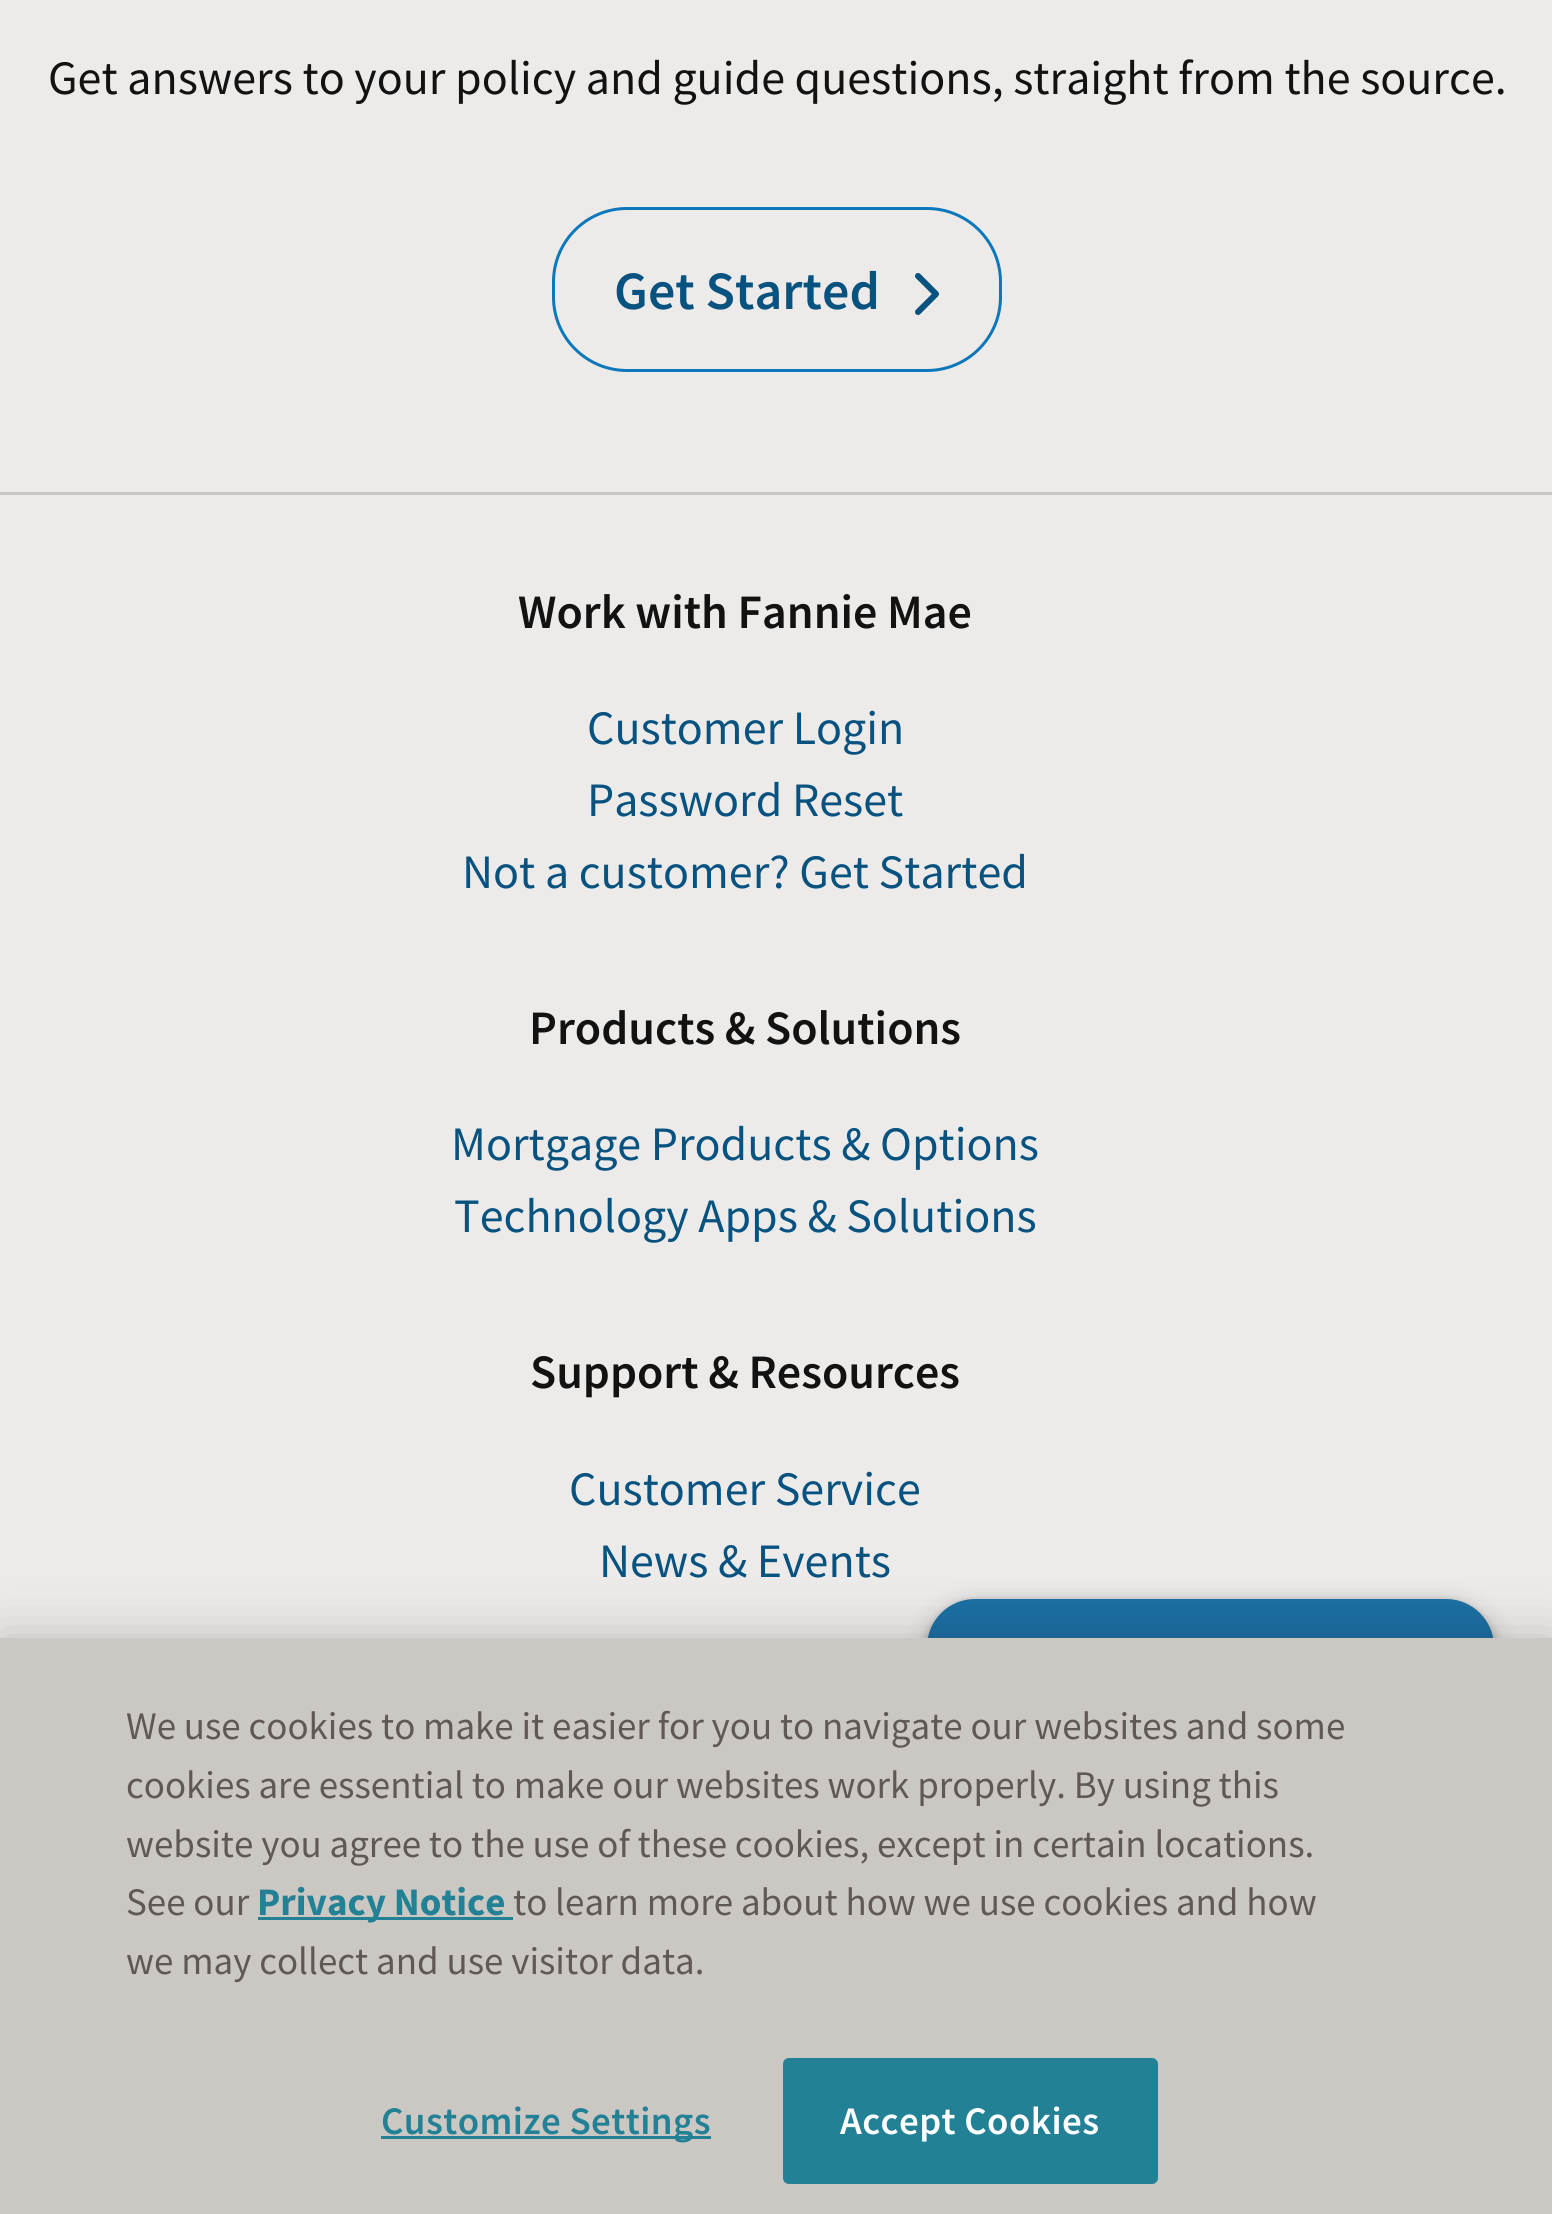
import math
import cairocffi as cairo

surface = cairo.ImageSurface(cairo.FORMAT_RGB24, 1552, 2214)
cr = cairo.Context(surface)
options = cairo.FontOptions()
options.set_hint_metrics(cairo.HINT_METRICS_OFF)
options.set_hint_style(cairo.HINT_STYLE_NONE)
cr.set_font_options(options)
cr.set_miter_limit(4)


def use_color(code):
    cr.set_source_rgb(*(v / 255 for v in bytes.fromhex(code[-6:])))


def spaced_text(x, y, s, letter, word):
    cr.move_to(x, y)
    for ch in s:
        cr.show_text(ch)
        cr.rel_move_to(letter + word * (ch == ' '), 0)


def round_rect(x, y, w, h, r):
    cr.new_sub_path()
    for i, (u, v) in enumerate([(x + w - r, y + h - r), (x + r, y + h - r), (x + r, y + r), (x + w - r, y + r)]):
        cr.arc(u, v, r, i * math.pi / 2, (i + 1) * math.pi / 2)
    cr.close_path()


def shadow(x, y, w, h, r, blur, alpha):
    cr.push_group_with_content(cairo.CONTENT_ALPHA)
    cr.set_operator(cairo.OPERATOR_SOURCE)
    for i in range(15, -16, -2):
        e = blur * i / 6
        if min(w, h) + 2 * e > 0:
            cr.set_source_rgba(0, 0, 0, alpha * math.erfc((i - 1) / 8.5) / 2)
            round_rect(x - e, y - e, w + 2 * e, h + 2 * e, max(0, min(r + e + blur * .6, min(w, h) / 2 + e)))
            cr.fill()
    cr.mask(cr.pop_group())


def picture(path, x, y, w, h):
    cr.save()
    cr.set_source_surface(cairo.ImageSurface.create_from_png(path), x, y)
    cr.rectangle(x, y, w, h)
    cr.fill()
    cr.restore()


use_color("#edebe9")
cr.paint()
use_color("#cbc8c3")
cr.rectangle(0, 492, 1552, 3)
cr.fill()
cr.select_font_face("Source Sans Pro")
cr.set_font_size(48)
use_color("#121212")
cr.move_to(48, 94)
cr.show_text("Get answers to your policy and guide questions, straight from the source.")
round_rect(553.5, 208.5, 447, 162, 73.5)
use_color("#0c77ba")
cr.set_line_width(3)
cr.stroke()
cr.select_font_face("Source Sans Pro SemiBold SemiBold")
cr.set_font_size(54)
use_color("#085280")
cr.move_to(614, 309)
cr.show_text("Get Started")
picture("img1.png", 915, 273, 24, 42)
cr.set_font_size(48)
use_color("#121212")
cr.move_to(518, 628)
cr.show_text("Work with Fannie Mae")
cr.select_font_face("Source Sans Pro")
use_color("#085280")
cr.move_to(587, 744)
cr.show_text("Customer Login")
cr.move_to(587, 816)
cr.show_text("Password Reset")
cr.move_to(462, 888)
cr.show_text("Not a customer? Get Started")
cr.select_font_face("Source Sans Pro SemiBold SemiBold")
use_color("#121212")
cr.move_to(529, 1044)
cr.show_text("Products & Solutions")
cr.select_font_face("Source Sans Pro")
use_color("#085280")
cr.move_to(451, 1160)
cr.show_text("Mortgage Products & Options")
cr.move_to(454, 1232)
cr.show_text("Technology Apps & Solutions")
cr.select_font_face("Source Sans Pro SemiBold SemiBold")
use_color("#121212")
cr.move_to(530, 1388)
cr.show_text("Support & Resources")
cr.select_font_face("Source Sans Pro")
use_color("#085280")
cr.move_to(569, 1505)
cr.show_text("Customer Service")
cr.move_to(599, 1577)
cr.show_text("News & Events")
use_color("#000000")
shadow(918, 1602, 585, 183, 57, 12, 0.15)
shadow(927, 1602, 567, 165, 48, 4.5, 0.3)
use_color("#1c6fa3")
round_rect(927, 1599, 567, 165, 48)
cr.fill()
use_color("#000000")
shadow(0, 1638, 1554, 576, 0, 27, 0.2)
use_color("#cbc8c3")
cr.rectangle(0, 1638, 1552, 576)
cr.fill()
cr.set_font_size(39)
use_color("#605857")
cr.move_to(126, 1739)
cr.show_text("We use cookies to make it easier for you to navigate our websites and some")
cr.move_to(126, 1798)
cr.show_text("cookies are essential to make our websites work properly. By using this")
cr.move_to(126, 1857)
cr.show_text("website you agree to the use of these cookies, except in certain locations.")
cr.move_to(126, 1915)
cr.show_text("See our")
use_color("#238196")
cr.rectangle(258, 1917, 255, 3)
cr.fill()
cr.select_font_face("Source Sans Pro", cairo.FONT_SLANT_NORMAL, cairo.FONT_WEIGHT_BOLD)
cr.move_to(257, 1915)
cr.show_text("Privacy Notice")
cr.select_font_face("Source Sans Pro")
use_color("#605857")
cr.move_to(513, 1915)
cr.show_text("to learn more about how we use cookies and how")
cr.move_to(126, 1974)
cr.show_text("we may collect and use visitor data.")
use_color("#238196")
cr.rectangle(381, 2136, 330, 3)
cr.fill()
cr.select_font_face("Source Sans Pro SemiBold SemiBold")
spaced_text(381, 2134, "Customize Settings", 0.4, 0)
round_rect(784.5, 2059.5, 372, 123, 4.5)
cr.fill_preserve()
cr.stroke()
use_color("#ffffff")
spaced_text(840, 2134, "Accept Cookies", 0.4, 0)
surface.write_to_png("result.png")
